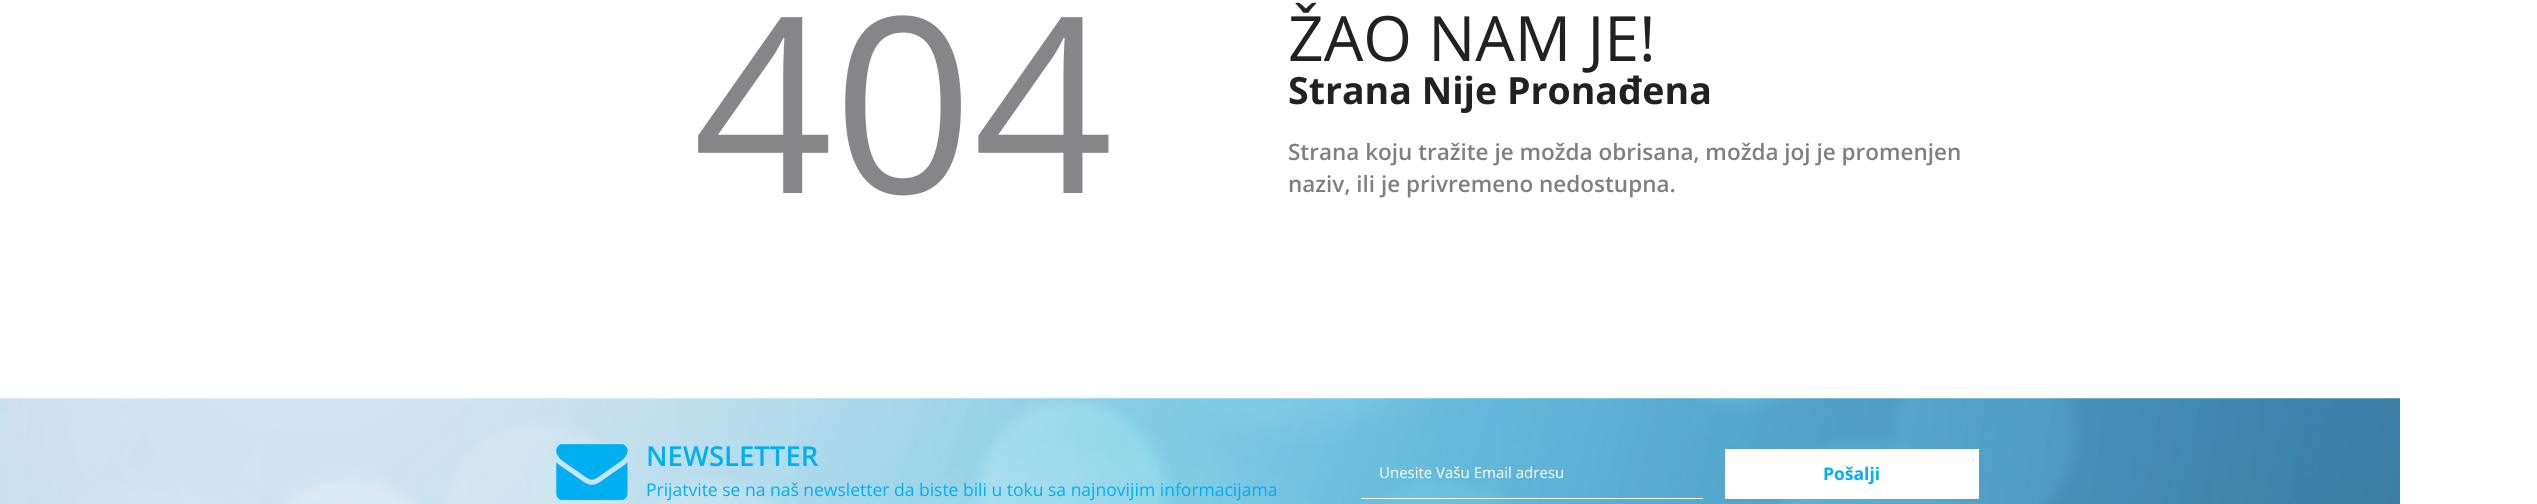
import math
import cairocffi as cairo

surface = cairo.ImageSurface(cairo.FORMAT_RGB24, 2537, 504)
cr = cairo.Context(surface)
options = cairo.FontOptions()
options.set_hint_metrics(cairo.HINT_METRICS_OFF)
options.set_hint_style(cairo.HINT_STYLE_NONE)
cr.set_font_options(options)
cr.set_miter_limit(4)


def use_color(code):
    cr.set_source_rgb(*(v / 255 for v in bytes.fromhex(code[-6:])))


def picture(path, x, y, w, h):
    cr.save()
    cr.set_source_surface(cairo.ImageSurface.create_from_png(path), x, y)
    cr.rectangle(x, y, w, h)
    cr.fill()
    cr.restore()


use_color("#ffffff")
cr.paint()
cr.select_font_face("Open Sans")
cr.set_font_size(245)
use_color("#868688")
cr.move_to(693, 193)
cr.show_text("404")
cr.set_font_size(62.5)
use_color("#212121")
cr.move_to(1288, 61)
cr.show_text("ŽAO NAM JE!")
cr.select_font_face("Open Sans", cairo.FONT_SLANT_NORMAL, cairo.FONT_WEIGHT_BOLD)
cr.set_font_size(37.5)
cr.move_to(1288, 104)
cr.show_text("Strana Nije Pronađena")
cr.select_font_face("Open Sans SemiBold")
cr.set_font_size(22.5)
use_color("#807f7d")
cr.move_to(1288, 160)
cr.show_text("Strana koju tražite je možda obrisana, možda joj je promenjen")
cr.move_to(1288, 192)
cr.show_text("naziv, ili je privremeno nedostupna.")
picture("img1.png", 0, 398, 2400, 106)
picture("img2.png", 556, 444, 72, 57)
cr.set_font_size(27.5)
use_color("#01aef0")
cr.move_to(646, 466)
cr.show_text("NEWSLETTER")
cr.select_font_face("Open Sans")
cr.set_font_size(17.5)
cr.move_to(646, 496)
cr.show_text("Prijatvite se na naš newsletter da biste bili u toku sa najnovijim informacijama")
use_color("#ffffff")
cr.rectangle(1361, 498, 342, 1)
cr.fill()
cr.set_font_size(15)
cr.move_to(1379, 478)
cr.show_text("Unesite Vašu Email adresu")
cr.rectangle(1725, 449, 254, 50)
cr.fill()
cr.select_font_face("Open Sans", cairo.FONT_SLANT_NORMAL, cairo.FONT_WEIGHT_BOLD)
cr.set_font_size(17.5)
use_color("#01aef0")
cr.move_to(1823, 480)
cr.show_text("Pošalji")
surface.write_to_png("result.png")
